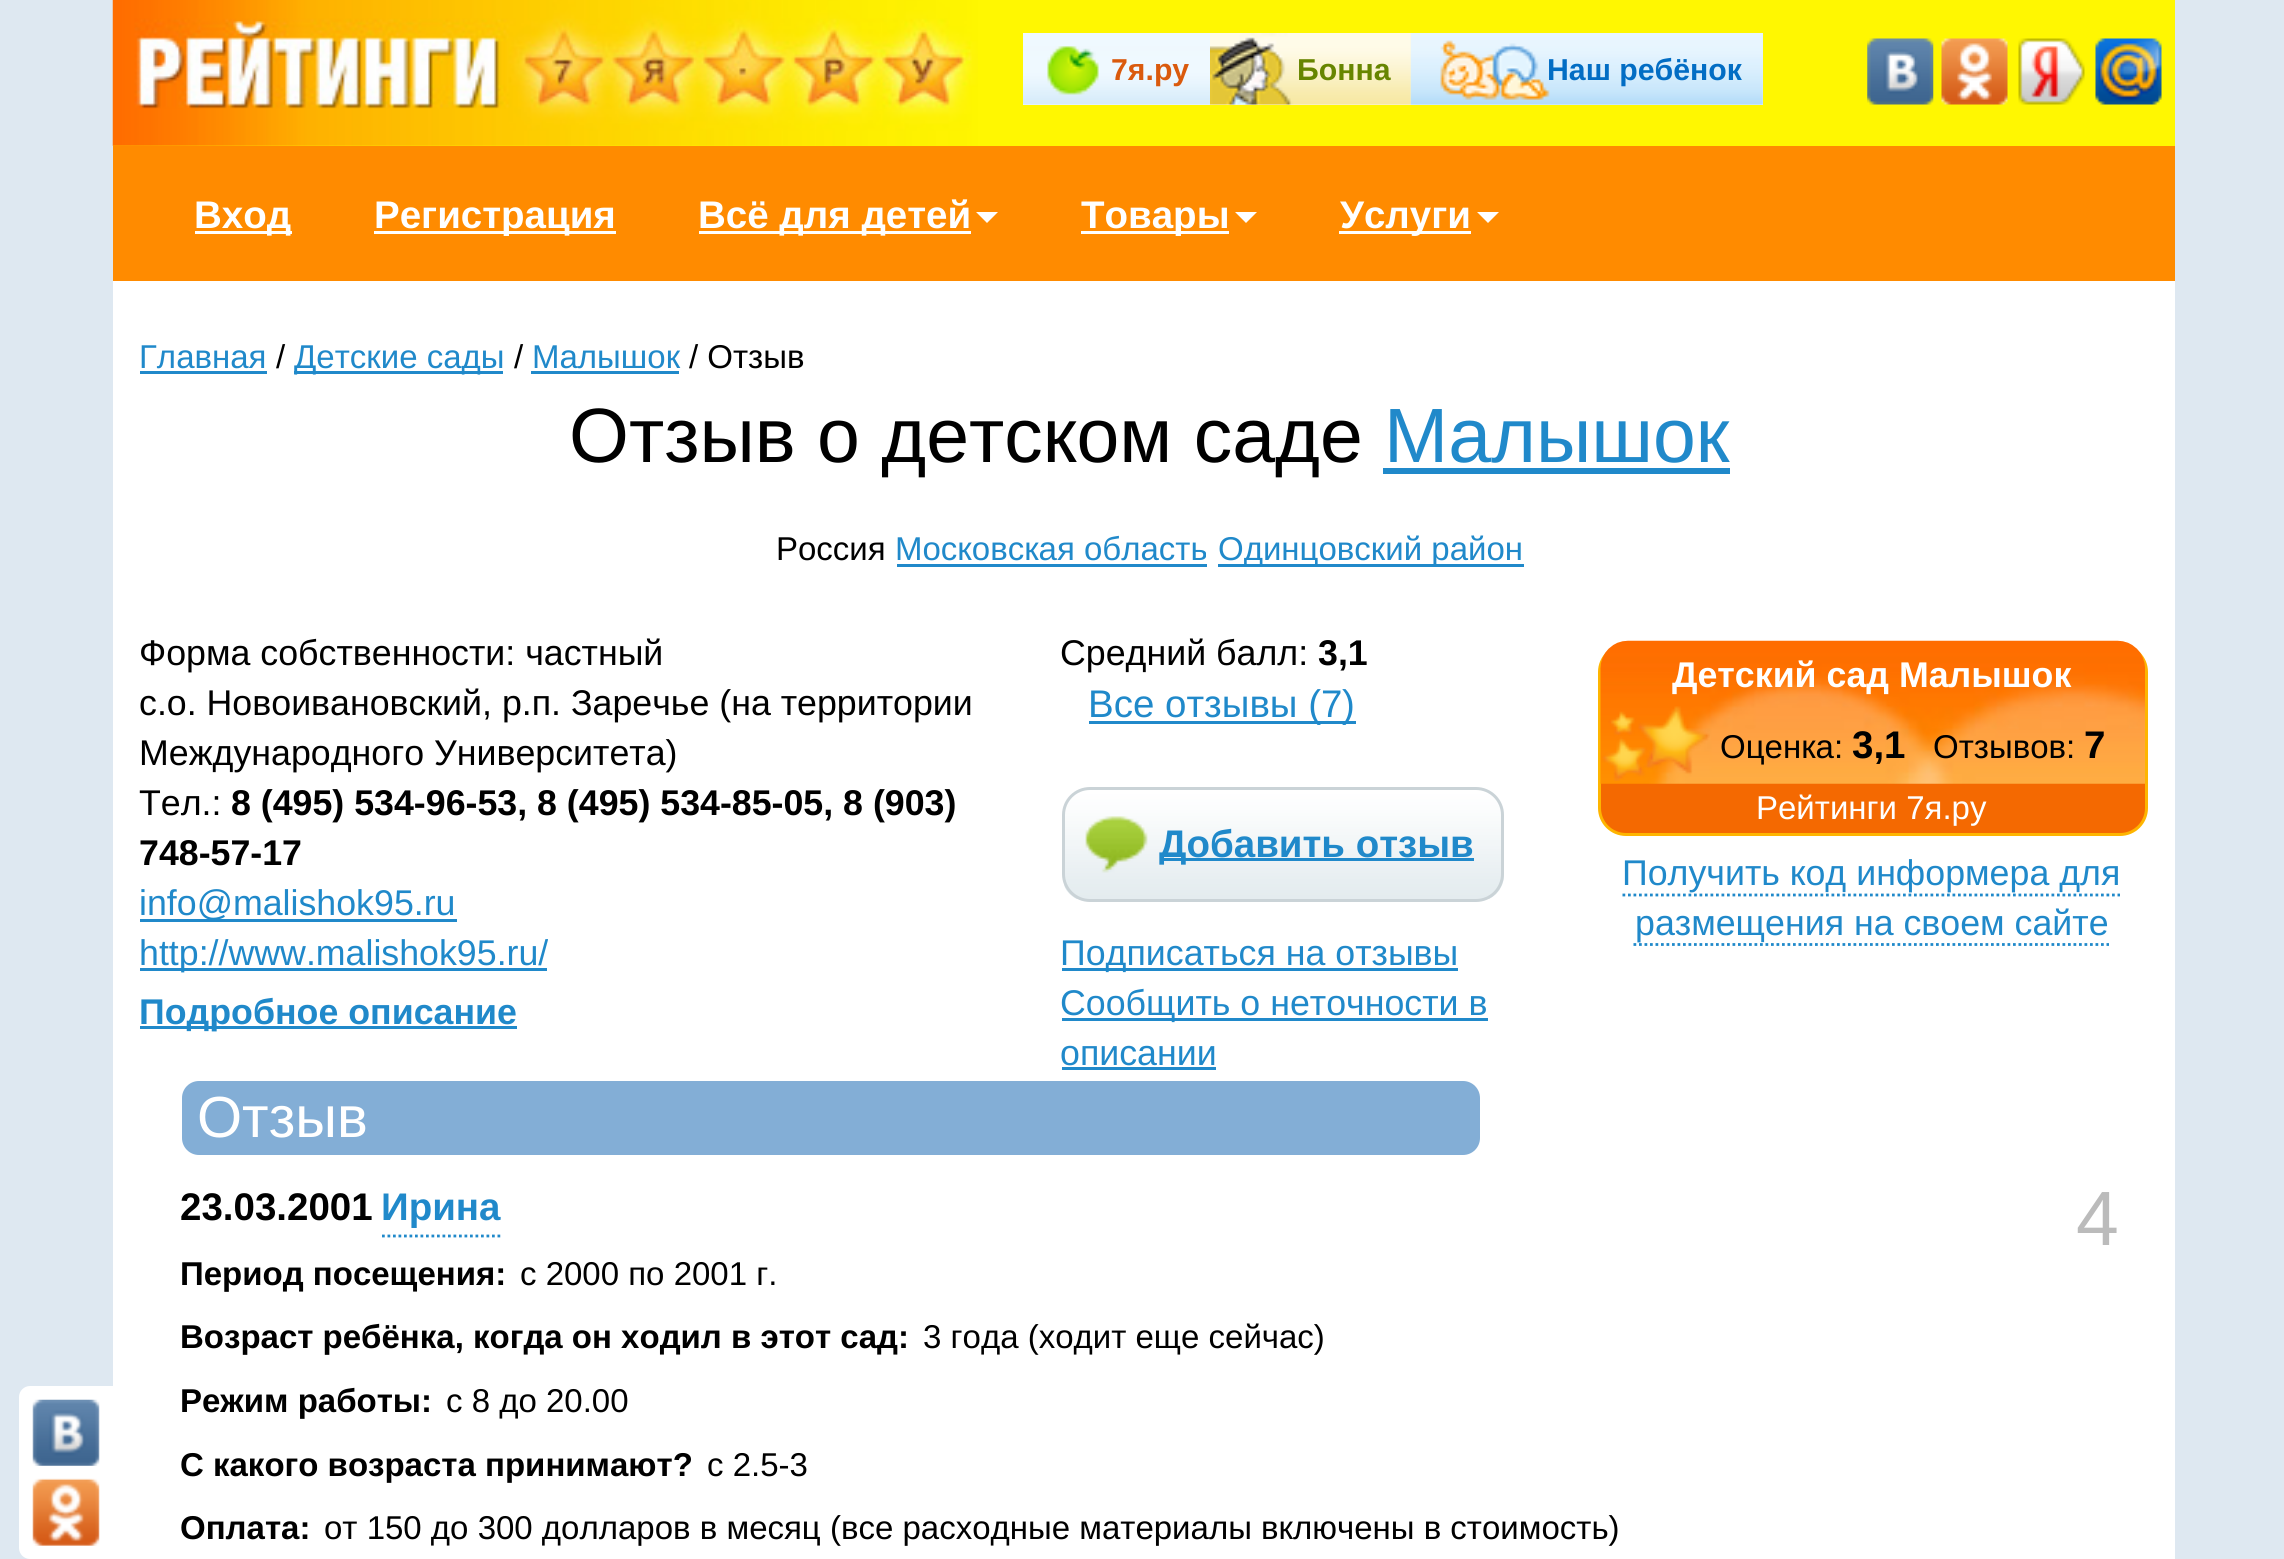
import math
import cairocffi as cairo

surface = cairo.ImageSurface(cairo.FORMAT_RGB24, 2284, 1559)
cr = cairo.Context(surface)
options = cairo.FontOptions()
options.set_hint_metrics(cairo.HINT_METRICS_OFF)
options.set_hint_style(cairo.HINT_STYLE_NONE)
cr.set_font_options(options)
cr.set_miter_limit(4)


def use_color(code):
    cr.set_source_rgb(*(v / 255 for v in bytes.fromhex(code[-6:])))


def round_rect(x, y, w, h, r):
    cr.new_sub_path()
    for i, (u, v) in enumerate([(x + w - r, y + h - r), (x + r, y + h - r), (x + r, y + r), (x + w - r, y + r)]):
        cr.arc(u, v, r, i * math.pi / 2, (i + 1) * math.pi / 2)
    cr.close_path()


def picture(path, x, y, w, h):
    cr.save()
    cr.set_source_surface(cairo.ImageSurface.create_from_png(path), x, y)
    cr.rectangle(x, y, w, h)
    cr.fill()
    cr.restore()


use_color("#dee8f1")
cr.paint()
use_color("#ffffff")
cr.rectangle(113, 281, 2062, 1278)
cr.fill()
use_color("#fff701")
cr.rectangle(113, 0, 2062, 146)
cr.fill()
picture("img1.png", 112, 0, 866, 146)
use_color("#eff9ff")
cr.rectangle(1023, 33, 187, 72)
cr.fill()
picture("img2.png", 1023, 46, 187, 59)
cr.select_font_face("Liberation Sans", cairo.FONT_SLANT_NORMAL, cairo.FONT_WEIGHT_BOLD)
cr.set_font_size(30.25)
use_color("#da5a0d")
cr.move_to(1111, 80)
cr.show_text("7я.ру")
use_color("#fdf6d7")
cr.rectangle(1210, 33, 201, 72)
cr.fill()
picture("img3.png", 1210, 33, 201, 72)
use_color("#678500")
cr.move_to(1297, 80)
cr.show_text("Бонна")
use_color("#ddf1fe")
cr.rectangle(1411, 33, 352, 72)
cr.fill()
picture("img4.png", 1410, 33, 353, 72)
use_color("#026dc4")
cr.move_to(1547, 80)
cr.show_text("Наш ребёнок")
picture("img5.png", 1867, 38, 67, 67)
picture("img6.png", 1941, 38, 67, 67)
picture("img7.png", 2018, 38, 67, 67)
picture("img8.png", 2095, 38, 67, 67)
use_color("#ff8b00")
cr.rectangle(113, 146, 2062, 135)
cr.fill()
use_color("#ffffff")
cr.rectangle(195, 231, 97, 3)
cr.fill()
cr.set_font_size(38.5)
cr.move_to(194, 228)
cr.show_text("Вход")
cr.rectangle(374, 231, 242, 3)
cr.fill()
cr.move_to(374, 228)
cr.show_text("Регистрация")
cr.rectangle(699, 231, 272, 3)
cr.fill()
cr.move_to(698, 228)
cr.show_text("Всё для детей")
cr.new_path()
cr.move_to(976, 212)
cr.line_to(998, 212)
cr.line_to(987, 223)
cr.close_path()
cr.fill()
cr.rectangle(1081, 231, 148, 3)
cr.fill()
cr.move_to(1081, 228)
cr.show_text("Товары")
cr.new_path()
cr.move_to(1235, 212)
cr.line_to(1257, 212)
cr.line_to(1246, 223)
cr.close_path()
cr.fill()
cr.rectangle(1339, 231, 132, 3)
cr.fill()
cr.move_to(1340, 228)
cr.show_text("Услуги")
cr.new_path()
cr.move_to(1477, 212)
cr.line_to(1499, 212)
cr.line_to(1488, 223)
cr.close_path()
cr.fill()
cr.new_path()
cr.move_to(30, 1386)
cr.line_to(113, 1386)
cr.line_to(113, 1559)
cr.line_to(30, 1559)
cr.curve_to(24, 1559, 19, 1554, 19, 1548)
cr.line_to(19, 1397)
cr.curve_to(19, 1391, 24, 1386, 30, 1386)
cr.close_path()
cr.fill()
picture("img9.png", 32, 1399, 68, 67)
picture("img10.png", 32, 1478, 68, 68)
cr.select_font_face("Liberation Sans")
cr.set_font_size(33)
use_color("#2089ca")
cr.move_to(139, 368)
cr.show_text("Главная")
cr.rectangle(140, 371, 127, 3)
cr.fill()
use_color("#000000")
cr.move_to(276, 368)
cr.show_text("/")
use_color("#2089ca")
cr.rectangle(294, 371, 209, 3)
cr.fill()
cr.move_to(294, 368)
cr.show_text("Детские сады")
use_color("#000000")
cr.move_to(514, 368)
cr.show_text("/")
use_color("#2089ca")
cr.move_to(532, 368)
cr.show_text("Малышок")
cr.rectangle(531, 371, 148, 3)
cr.fill()
use_color("#000000")
cr.move_to(689, 368)
cr.show_text("/ Отзыв")
cr.set_font_size(77)
cr.move_to(569, 462)
cr.show_text("Отзыв о детском саде")
use_color("#2089ca")
cr.move_to(1384, 462)
cr.show_text("Малышок")
cr.rectangle(1383, 468, 347, 6)
cr.fill()
cr.set_font_size(33)
use_color("#000000")
cr.move_to(776, 560)
cr.show_text("Россия")
use_color("#2089ca")
cr.move_to(895, 560)
cr.show_text("Московская область")
cr.rectangle(897, 564, 310, 3)
cr.fill()
cr.rectangle(1218, 564, 306, 3)
cr.fill()
cr.move_to(1218, 560)
cr.show_text("Одинцовский район")
cr.set_font_size(35.75)
use_color("#000000")
cr.move_to(139, 665)
cr.show_text("Форма собственности: частный")
cr.move_to(139, 715)
cr.show_text("с.о. Новоивановский, р.п. Заречье (на территории")
cr.move_to(139, 765)
cr.show_text("Международного Университета)")
cr.move_to(139, 815)
cr.show_text("Тел.:")
cr.select_font_face("Liberation Sans", cairo.FONT_SLANT_NORMAL, cairo.FONT_WEIGHT_BOLD)
cr.move_to(231, 815)
cr.show_text("8 (495) 534-96-53, 8 (495) 534-85-05, 8 (903)")
cr.move_to(139, 865)
cr.show_text("748-57-17")
use_color("#2089ca")
cr.rectangle(140, 919, 317, 3)
cr.fill()
cr.select_font_face("Liberation Sans")
cr.move_to(139, 915)
cr.show_text("info@malishok95.ru")
cr.rectangle(140, 968, 407, 3)
cr.fill()
cr.move_to(139, 965)
cr.show_text("http://www.malishok95.ru/")
cr.rectangle(140, 1026, 377, 3)
cr.fill()
cr.select_font_face("Liberation Sans", cairo.FONT_SLANT_NORMAL, cairo.FONT_WEIGHT_BOLD)
cr.move_to(139, 1024)
cr.show_text("Подробное описание")
cr.select_font_face("Liberation Sans")
use_color("#000000")
cr.move_to(1060, 665)
cr.show_text("Средний балл:")
cr.select_font_face("Liberation Sans", cairo.FONT_SLANT_NORMAL, cairo.FONT_WEIGHT_BOLD)
cr.move_to(1318, 665)
cr.show_text("3,1")
use_color("#2089ca")
cr.rectangle(1089, 721, 231, 3)
cr.fill()
cr.select_font_face("Liberation Sans")
cr.set_font_size(38.5)
cr.move_to(1088, 717)
cr.show_text("Все отзывы (7")
cr.rectangle(1320, 721, 36, 3)
cr.fill()
cr.move_to(1342, 717)
cr.show_text(")")
picture("img11.png", 1064, 789, 440, 110)
round_rect(1063.5, 788.5, 439, 112, 26.5)
use_color("#cad3d7")
cr.set_line_width(3)
cr.stroke()
use_color("#2089ca")
cr.rectangle(1161, 858, 313, 3)
cr.fill()
cr.select_font_face("Liberation Sans", cairo.FONT_SLANT_NORMAL, cairo.FONT_WEIGHT_BOLD)
cr.move_to(1159, 857)
cr.show_text("Добавить отзыв")
cr.rectangle(1062, 968, 396, 3)
cr.fill()
cr.select_font_face("Liberation Sans")
cr.set_font_size(35.75)
cr.move_to(1060, 965)
cr.show_text("Подписаться на отзывы")
cr.rectangle(1062, 1018, 426, 3)
cr.fill()
cr.move_to(1060, 1015)
cr.show_text("Сообщить о неточности в")
cr.move_to(1060, 1065)
cr.show_text("описании")
cr.rectangle(1062, 1067, 154, 3)
cr.fill()
use_color("#f46901")
round_rect(1599.5, 645.5, 547, 189, 26.5)
cr.fill_preserve()
use_color("#feb500")
cr.stroke()
picture("img12.png", 1600, 640, 545, 144)
cr.select_font_face("Liberation Sans", cairo.FONT_SLANT_NORMAL, cairo.FONT_WEIGHT_BOLD)
use_color("#ffffff")
cr.move_to(1672, 687)
cr.show_text("Детский сад Малышок")
picture("img13.png", 1602, 706, 108, 75)
cr.select_font_face("Liberation Sans")
cr.set_font_size(33)
use_color("#000000")
cr.move_to(1720, 758)
cr.show_text("Оценка:")
cr.select_font_face("Liberation Sans", cairo.FONT_SLANT_NORMAL, cairo.FONT_WEIGHT_BOLD)
cr.set_font_size(38.5)
cr.move_to(1852, 758)
cr.show_text("3,1")
cr.select_font_face("Liberation Sans")
cr.set_font_size(33)
cr.move_to(1933, 758)
cr.show_text("Отзывов:")
cr.select_font_face("Liberation Sans", cairo.FONT_SLANT_NORMAL, cairo.FONT_WEIGHT_BOLD)
cr.set_font_size(38.5)
cr.move_to(2084, 758)
cr.show_text("7")
cr.select_font_face("Liberation Sans")
cr.set_font_size(33)
use_color("#ffffff")
cr.move_to(1756, 819)
cr.show_text("Рейтинги 7я.ру")
cr.set_font_size(35.75)
use_color("#2089ca")
cr.move_to(1622, 885)
cr.show_text("Получить код информера для")
cr.new_path()
cr.move_to(1622.5, 895)
cr.line_to(2120, 895)
cr.set_line_width(2.8)
cr.set_dash([2.75, 2.75])
cr.stroke()
cr.move_to(1635, 935)
cr.show_text("размещения на своем сайте")
cr.new_path()
cr.move_to(1633.5, 944.5)
cr.line_to(2109, 944.5)
cr.stroke()
use_color("#83aed6")
round_rect(182, 1081, 1298, 74, 17)
cr.fill()
cr.set_font_size(58)
use_color("#ffffff")
cr.move_to(197, 1137)
cr.show_text("Отзыв")
cr.select_font_face("Liberation Sans", cairo.FONT_SLANT_NORMAL, cairo.FONT_WEIGHT_BOLD)
cr.set_font_size(38.5)
use_color("#000000")
cr.move_to(180, 1220)
cr.show_text("23.03.2001")
cr.new_path()
cr.move_to(382, 1236)
cr.line_to(500.5, 1236)
use_color("#2089ca")
cr.stroke()
cr.move_to(381, 1220)
cr.show_text("Ирина")
cr.select_font_face("Liberation Sans")
cr.set_font_size(77)
use_color("#bbbbbb")
cr.move_to(2076, 1245)
cr.show_text("4")
cr.select_font_face("Liberation Sans", cairo.FONT_SLANT_NORMAL, cairo.FONT_WEIGHT_BOLD)
cr.set_font_size(33)
use_color("#000000")
cr.move_to(180, 1285)
cr.show_text("Период посещения:")
cr.select_font_face("Liberation Sans")
cr.move_to(520, 1285)
cr.show_text("с 2000 по 2001 г.")
cr.select_font_face("Liberation Sans", cairo.FONT_SLANT_NORMAL, cairo.FONT_WEIGHT_BOLD)
cr.move_to(180, 1348)
cr.show_text("Возраст ребёнка, когда он ходил в этот сад:")
cr.select_font_face("Liberation Sans")
cr.move_to(923, 1348)
cr.show_text("3 года (ходит еще сейчас)")
cr.select_font_face("Liberation Sans", cairo.FONT_SLANT_NORMAL, cairo.FONT_WEIGHT_BOLD)
cr.move_to(180, 1412)
cr.show_text("Режим работы:")
cr.select_font_face("Liberation Sans")
cr.move_to(446, 1412)
cr.show_text("с 8 до 20.00")
cr.select_font_face("Liberation Sans", cairo.FONT_SLANT_NORMAL, cairo.FONT_WEIGHT_BOLD)
cr.move_to(180, 1476)
cr.show_text("С какого возраста принимают?")
cr.select_font_face("Liberation Sans")
cr.move_to(707, 1476)
cr.show_text("с 2.5-3")
cr.select_font_face("Liberation Sans", cairo.FONT_SLANT_NORMAL, cairo.FONT_WEIGHT_BOLD)
cr.move_to(180, 1539)
cr.show_text("Оплата:")
cr.select_font_face("Liberation Sans")
cr.move_to(324, 1539)
cr.show_text("от 150 до 300 долларов в месяц (все расходные материалы включены в стоимость)")
surface.write_to_png("result.png")
